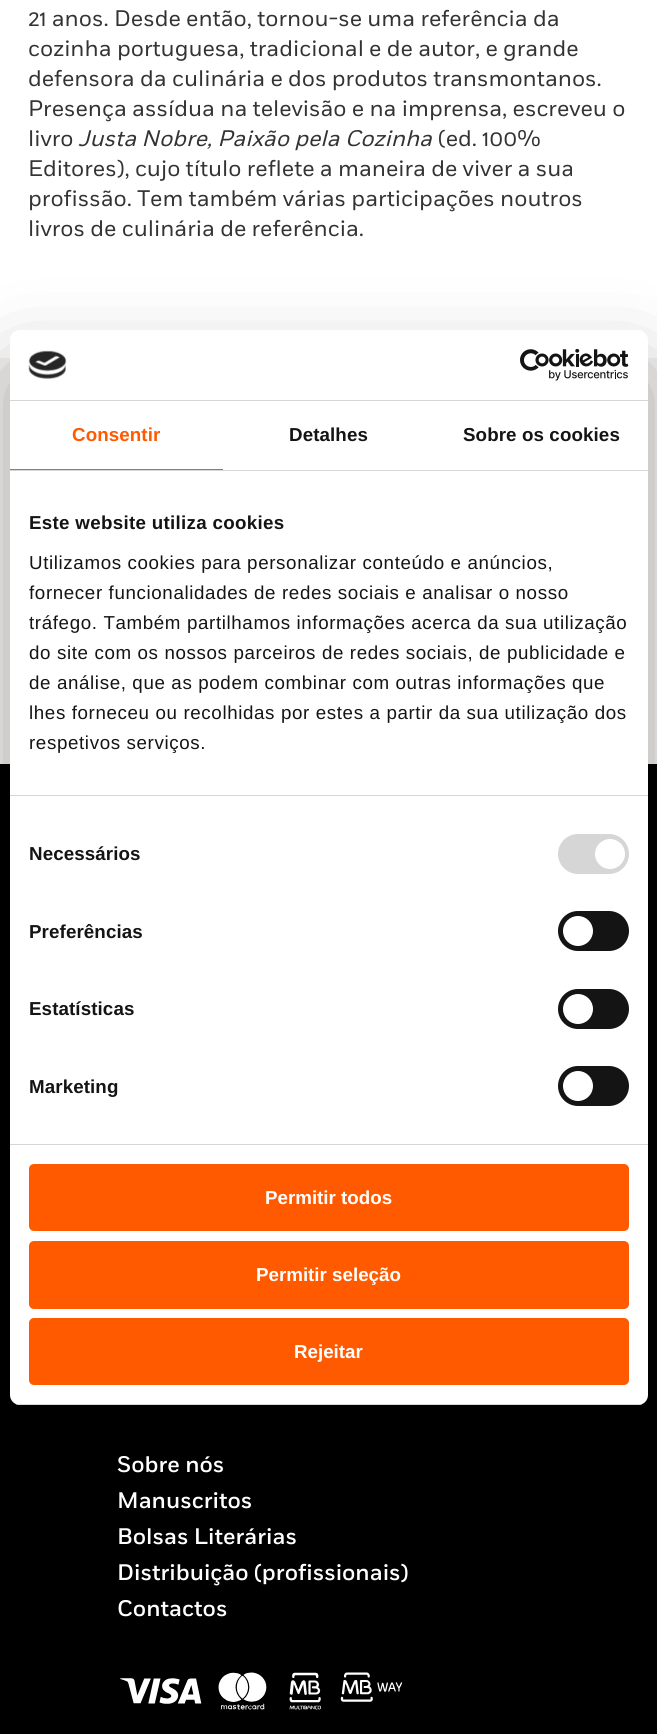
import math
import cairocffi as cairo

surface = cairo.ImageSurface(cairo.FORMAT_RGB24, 657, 1734)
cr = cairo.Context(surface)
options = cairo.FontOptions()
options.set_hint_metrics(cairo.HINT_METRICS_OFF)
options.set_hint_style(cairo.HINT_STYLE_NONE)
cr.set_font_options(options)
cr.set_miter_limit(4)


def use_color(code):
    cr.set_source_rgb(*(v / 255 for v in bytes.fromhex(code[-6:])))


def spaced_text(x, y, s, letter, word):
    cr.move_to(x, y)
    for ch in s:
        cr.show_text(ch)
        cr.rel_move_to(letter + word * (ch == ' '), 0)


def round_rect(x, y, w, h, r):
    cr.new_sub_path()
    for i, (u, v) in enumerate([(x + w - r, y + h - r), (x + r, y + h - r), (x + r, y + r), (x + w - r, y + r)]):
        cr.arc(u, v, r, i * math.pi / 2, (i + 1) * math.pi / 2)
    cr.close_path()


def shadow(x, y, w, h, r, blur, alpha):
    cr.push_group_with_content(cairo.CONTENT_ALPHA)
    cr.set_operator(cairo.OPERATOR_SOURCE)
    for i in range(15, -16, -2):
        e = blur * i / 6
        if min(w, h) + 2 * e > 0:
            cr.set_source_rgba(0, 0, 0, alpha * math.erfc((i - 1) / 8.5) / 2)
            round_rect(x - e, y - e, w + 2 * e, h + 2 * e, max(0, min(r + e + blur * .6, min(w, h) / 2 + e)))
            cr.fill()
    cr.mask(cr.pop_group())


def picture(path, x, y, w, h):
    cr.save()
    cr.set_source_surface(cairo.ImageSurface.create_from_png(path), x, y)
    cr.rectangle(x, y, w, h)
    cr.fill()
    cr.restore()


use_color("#ffffff")
cr.paint()
cr.select_font_face("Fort")
cr.set_font_size(22.5)
use_color("#333333")
cr.move_to(28, 26)
cr.show_text("21 anos. Desde então, tornou-se uma referência da")
cr.move_to(28, 56)
cr.show_text("cozinha portuguesa, tradicional e de autor, e grande")
cr.move_to(28, 86)
cr.show_text("defensora da culinária e dos produtos transmontanos.")
cr.move_to(28, 116)
cr.show_text("Presença assídua na televisão e na imprensa, escreveu o")
cr.move_to(28, 146)
cr.show_text("livro")
cr.select_font_face("Fort", cairo.FONT_SLANT_ITALIC)
cr.move_to(78, 146)
cr.show_text("Justa Nobre, Paixão pela Cozinha")
cr.select_font_face("Fort")
cr.move_to(438, 146)
cr.show_text("(ed. 100%")
cr.move_to(28, 176)
cr.show_text("Editores), cujo título reflete a maneira de viver a sua")
cr.move_to(28, 206)
cr.show_text("profissão. Tem também várias participações noutros")
cr.move_to(28, 236)
cr.show_text("livros de culinária de referência.")
use_color("#f4f2f0")
cr.rectangle(0, 358, 657, 406)
cr.fill()
use_color("#000000")
cr.rectangle(0, 764, 657, 970)
cr.fill()
use_color("#000000")
shadow(10, 370, 638, 1075, 10, 42.5, 0.3)
use_color("#ffffff")
round_rect(10, 330, 638, 1075, 10)
cr.fill()
use_color("#d6d6d6")
cr.rectangle(10, 400, 638, 1)
cr.fill()
picture("img1.png", 28, 350, 39, 29)
picture("img2.png", 520, 349, 109, 32)
cr.rectangle(10, 470, 638, 1)
cr.fill()
use_color("#ff5a00")
cr.rectangle(10, 469, 213, 1)
cr.fill()
cr.select_font_face("Liberation Sans", cairo.FONT_SLANT_NORMAL, cairo.FONT_WEIGHT_BOLD)
cr.set_font_size(18.75)
spaced_text(72, 441, "Consentir", 0.1, 0)
use_color("#141414")
spaced_text(289, 441, "Detalhes", 0.1, 0)
spaced_text(463, 441, "Sobre os cookies", 0.1, 0)
use_color("#d6d6d6")
cr.rectangle(10, 795, 638, 1)
cr.fill()
use_color("#141414")
spaced_text(29, 529, "Este website utiliza cookies", 0.3, 0)
cr.select_font_face("Liberation Sans")
spaced_text(29, 569, "Utilizamos cookies para personalizar conteúdo e anúncios,", 0.62, 0)
spaced_text(29, 599, "fornecer funcionalidades de redes sociais e analisar o nosso", 0.62, 0)
spaced_text(29, 629, "tráfego. Também partilhamos informações acerca da sua utilização", 0.62, 0)
spaced_text(29, 659, "do site com os nossos parceiros de redes sociais, de publicidade e", 0.62, 0)
spaced_text(29, 689, "de análise, que as podem combinar com outras informações que", 0.62, 0)
spaced_text(29, 719, "lhes forneceu ou recolhidas por estes a partir da sua utilização dos", 0.62, 0)
spaced_text(29, 749, "respetivos serviços.", 0.62, 0)
use_color("#d6d6d6")
cr.rectangle(10, 1144, 638, 1)
cr.fill()
cr.select_font_face("Liberation Sans", cairo.FONT_SLANT_NORMAL, cairo.FONT_WEIGHT_BOLD)
use_color("#141414")
spaced_text(29, 860, "Necessários", 0.1, 0)
use_color("#d6d6d6")
round_rect(558, 834, 71, 40, 20)
cr.fill()
use_color("#ffffff")
cr.arc(610, 854, 15, 0, 2 * math.pi)
cr.fill()
use_color("#141414")
spaced_text(29, 938, "Preferências", 0.1, 0)
round_rect(558, 911, 71, 40, 20)
cr.fill()
use_color("#ffffff")
cr.arc(578, 931, 15, 0, 2 * math.pi)
cr.fill()
use_color("#141414")
spaced_text(29, 1015, "Estatísticas", 0.1, 0)
round_rect(558, 989, 71, 40, 20)
cr.fill()
use_color("#ffffff")
cr.arc(578, 1009, 15, 0, 2 * math.pi)
cr.fill()
use_color("#141414")
spaced_text(29, 1093, "Marketing", 0.1, 0)
round_rect(558, 1066, 71, 40, 20)
cr.fill()
use_color("#ffffff")
cr.arc(578, 1086, 15, 0, 2 * math.pi)
cr.fill()
cr.save()
round_rect(10, 330, 638, 1075, 10)
cr.clip()
use_color("#d6d6d6")
cr.rectangle(10, 1404, 638, 1)
cr.fill()
cr.restore()
use_color("#ff5a00")
round_rect(29, 1164, 600, 67, 5)
cr.fill()
use_color("#ffffff")
cr.move_to(265, 1204)
cr.show_text("Permitir todos")
use_color("#ff5a00")
round_rect(29, 1241, 600, 68, 5)
cr.fill()
use_color("#ffffff")
cr.move_to(256, 1281)
cr.show_text("Permitir seleção")
use_color("#ff5a00")
round_rect(29, 1318, 600, 67, 5)
cr.fill()
use_color("#ffffff")
cr.move_to(294, 1358)
cr.show_text("Rejeitar")
cr.select_font_face("Fort Medium")
cr.set_font_size(22.5)
cr.move_to(117, 1472)
cr.show_text("Sobre nós")
cr.move_to(117, 1508)
cr.show_text("Manuscritos")
cr.move_to(117, 1544)
cr.show_text("Bolsas Literárias")
cr.move_to(117, 1580)
cr.show_text("Distribuição (profissionais)")
cr.move_to(117, 1616)
cr.show_text("Contactos")
picture("img3.png", 120, 1672, 283, 38)
surface.write_to_png("result.png")
